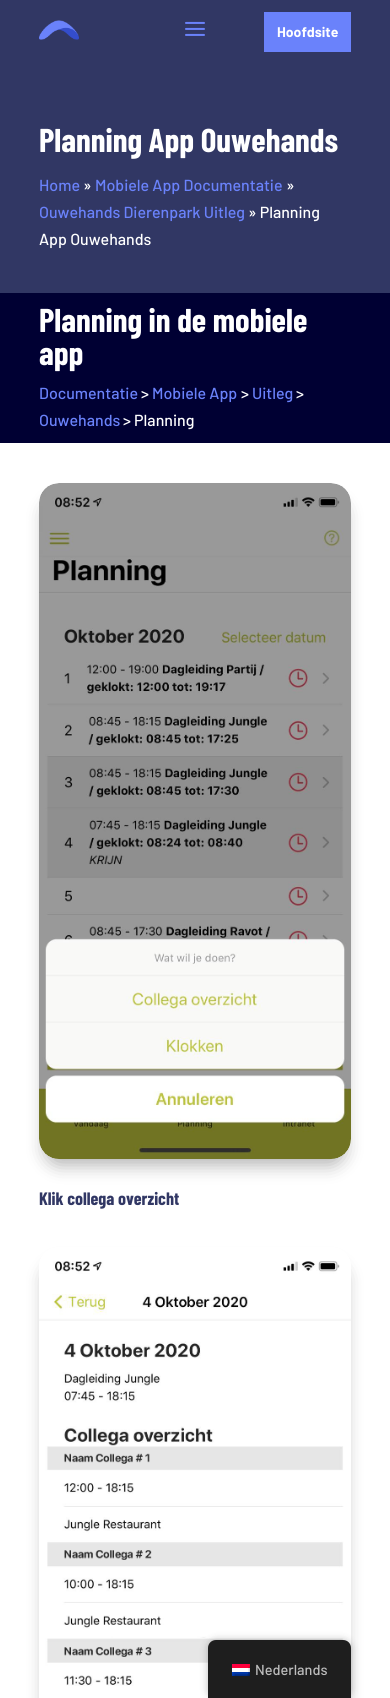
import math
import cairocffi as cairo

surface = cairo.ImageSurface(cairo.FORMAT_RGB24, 390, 1698)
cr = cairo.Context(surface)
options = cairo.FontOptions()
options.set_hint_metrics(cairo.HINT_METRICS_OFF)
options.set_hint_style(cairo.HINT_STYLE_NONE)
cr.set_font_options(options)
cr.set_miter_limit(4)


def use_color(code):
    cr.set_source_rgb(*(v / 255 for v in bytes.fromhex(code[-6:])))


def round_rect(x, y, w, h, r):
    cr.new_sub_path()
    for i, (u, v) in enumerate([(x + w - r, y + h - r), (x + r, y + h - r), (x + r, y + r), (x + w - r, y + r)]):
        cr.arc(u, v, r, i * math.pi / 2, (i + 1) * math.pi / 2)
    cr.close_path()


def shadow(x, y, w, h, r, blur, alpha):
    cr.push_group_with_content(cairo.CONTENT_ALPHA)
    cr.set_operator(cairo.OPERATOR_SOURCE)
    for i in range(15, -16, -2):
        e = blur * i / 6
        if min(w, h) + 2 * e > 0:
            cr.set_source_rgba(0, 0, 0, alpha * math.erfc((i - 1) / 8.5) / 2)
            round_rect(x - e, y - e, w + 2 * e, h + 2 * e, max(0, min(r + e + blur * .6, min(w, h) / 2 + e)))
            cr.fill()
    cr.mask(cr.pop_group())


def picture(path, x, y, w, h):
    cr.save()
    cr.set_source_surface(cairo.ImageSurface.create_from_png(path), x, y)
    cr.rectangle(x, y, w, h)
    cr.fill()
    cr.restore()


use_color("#ffffff")
cr.paint()
use_color("#313764")
cr.rectangle(0, 0, 390, 293)
cr.fill()
picture("img1.png", 39, 20, 40, 20)
picture("img2.png", 185, 21, 20, 15)
use_color("#6a82fb")
cr.rectangle(268, 16, 79, 32)
cr.fill_preserve()
cr.set_line_width(8)
cr.stroke()
cr.select_font_face("Barlow", cairo.FONT_SLANT_NORMAL, cairo.FONT_WEIGHT_BOLD)
cr.set_font_size(14)
use_color("#ffffff")
cr.move_to(277, 37)
cr.show_text("Hoofdsite")
cr.select_font_face("Barlow Condensed", cairo.FONT_SLANT_NORMAL, cairo.FONT_WEIGHT_BOLD)
cr.set_font_size(33)
cr.move_to(39, 152)
cr.show_text("Planning App Ouwehands")
cr.select_font_face("Barlow Medium")
cr.set_font_size(16)
use_color("#6a82fb")
cr.move_to(39, 191)
cr.show_text("Home")
use_color("#ffffff")
cr.move_to(83, 191)
cr.show_text("»")
use_color("#6a82fb")
cr.move_to(95, 191)
cr.show_text("Mobiele App Documentatie")
use_color("#ffffff")
cr.move_to(286, 191)
cr.show_text("»")
use_color("#6a82fb")
cr.move_to(39, 218)
cr.show_text("Ouwehands Dierenpark Uitleg")
use_color("#ffffff")
cr.move_to(248, 218)
cr.show_text("» Planning")
cr.move_to(39, 245)
cr.show_text("App Ouwehands")
use_color("#000033")
cr.rectangle(0, 293, 390, 150)
cr.fill()
cr.select_font_face("Barlow Condensed", cairo.FONT_SLANT_NORMAL, cairo.FONT_WEIGHT_BOLD)
cr.set_font_size(33)
use_color("#ffffff")
cr.move_to(39, 332)
cr.show_text("Planning in de mobiele")
cr.move_to(39, 365)
cr.show_text("app")
cr.select_font_face("Barlow Medium")
cr.set_font_size(16)
use_color("#6a82fb")
cr.move_to(39, 399)
cr.show_text("Documentatie")
use_color("#ffffff")
cr.move_to(141, 399)
cr.show_text(">")
use_color("#6a82fb")
cr.move_to(152, 399)
cr.show_text("Mobiele App")
use_color("#ffffff")
cr.move_to(241, 399)
cr.show_text(">")
use_color("#6a82fb")
cr.move_to(252, 399)
cr.show_text("Uitleg")
use_color("#ffffff")
cr.move_to(296, 399)
cr.show_text(">")
use_color("#6a82fb")
cr.move_to(39, 426)
cr.show_text("Ouwehands")
use_color("#ffffff")
cr.move_to(123, 426)
cr.show_text("> Planning")
use_color("#000000")
shadow(45, 501, 300, 664, 14, 9, 0.3)
picture("img3.png", 39, 483, 312, 676)
cr.select_font_face("Barlow Condensed", cairo.FONT_SLANT_NORMAL, cairo.FONT_WEIGHT_BOLD)
cr.set_font_size(18)
use_color("#313764")
cr.move_to(39, 1205)
cr.show_text("Klik collega overzicht")
cr.save()
cr.set_fill_rule(cairo.FILL_RULE_EVEN_ODD)
cr.new_path()
cr.move_to(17, 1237)
cr.line_to(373, 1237)
cr.line_to(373, 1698)
cr.line_to(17, 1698)
cr.close_path()
cr.move_to(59, 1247)
cr.line_to(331, 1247)
cr.curve_to(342, 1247, 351, 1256, 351, 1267)
cr.line_to(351, 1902)
cr.curve_to(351, 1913, 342, 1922, 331, 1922)
cr.line_to(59, 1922)
cr.curve_to(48, 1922, 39, 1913, 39, 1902)
cr.line_to(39, 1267)
cr.curve_to(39, 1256, 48, 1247, 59, 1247)
cr.close_path()
cr.clip()
use_color("#000000")
shadow(45, 1265, 300, 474, 14, 9, 0.3)
cr.restore()
picture("img4.png", 39, 1261, 312, 425)
use_color("#000000")
shadow(208, 1640, 143, 58, 8, 4, 0.25)
use_color("#1e1e1e")
cr.new_path()
cr.move_to(216, 1640)
cr.line_to(343, 1640)
cr.curve_to(347.5, 1640, 351, 1643.5, 351, 1648)
cr.line_to(351, 1698)
cr.line_to(208, 1698)
cr.line_to(208, 1648)
cr.curve_to(208, 1643.5, 211.5, 1640, 216, 1640)
cr.close_path()
cr.fill()
picture("img5.png", 232, 1664, 18, 12)
cr.select_font_face("Barlow Medium")
cr.set_font_size(14.5)
use_color("#bdbdbd")
cr.move_to(255, 1675)
cr.show_text("Nederlands")
surface.write_to_png("result.png")
